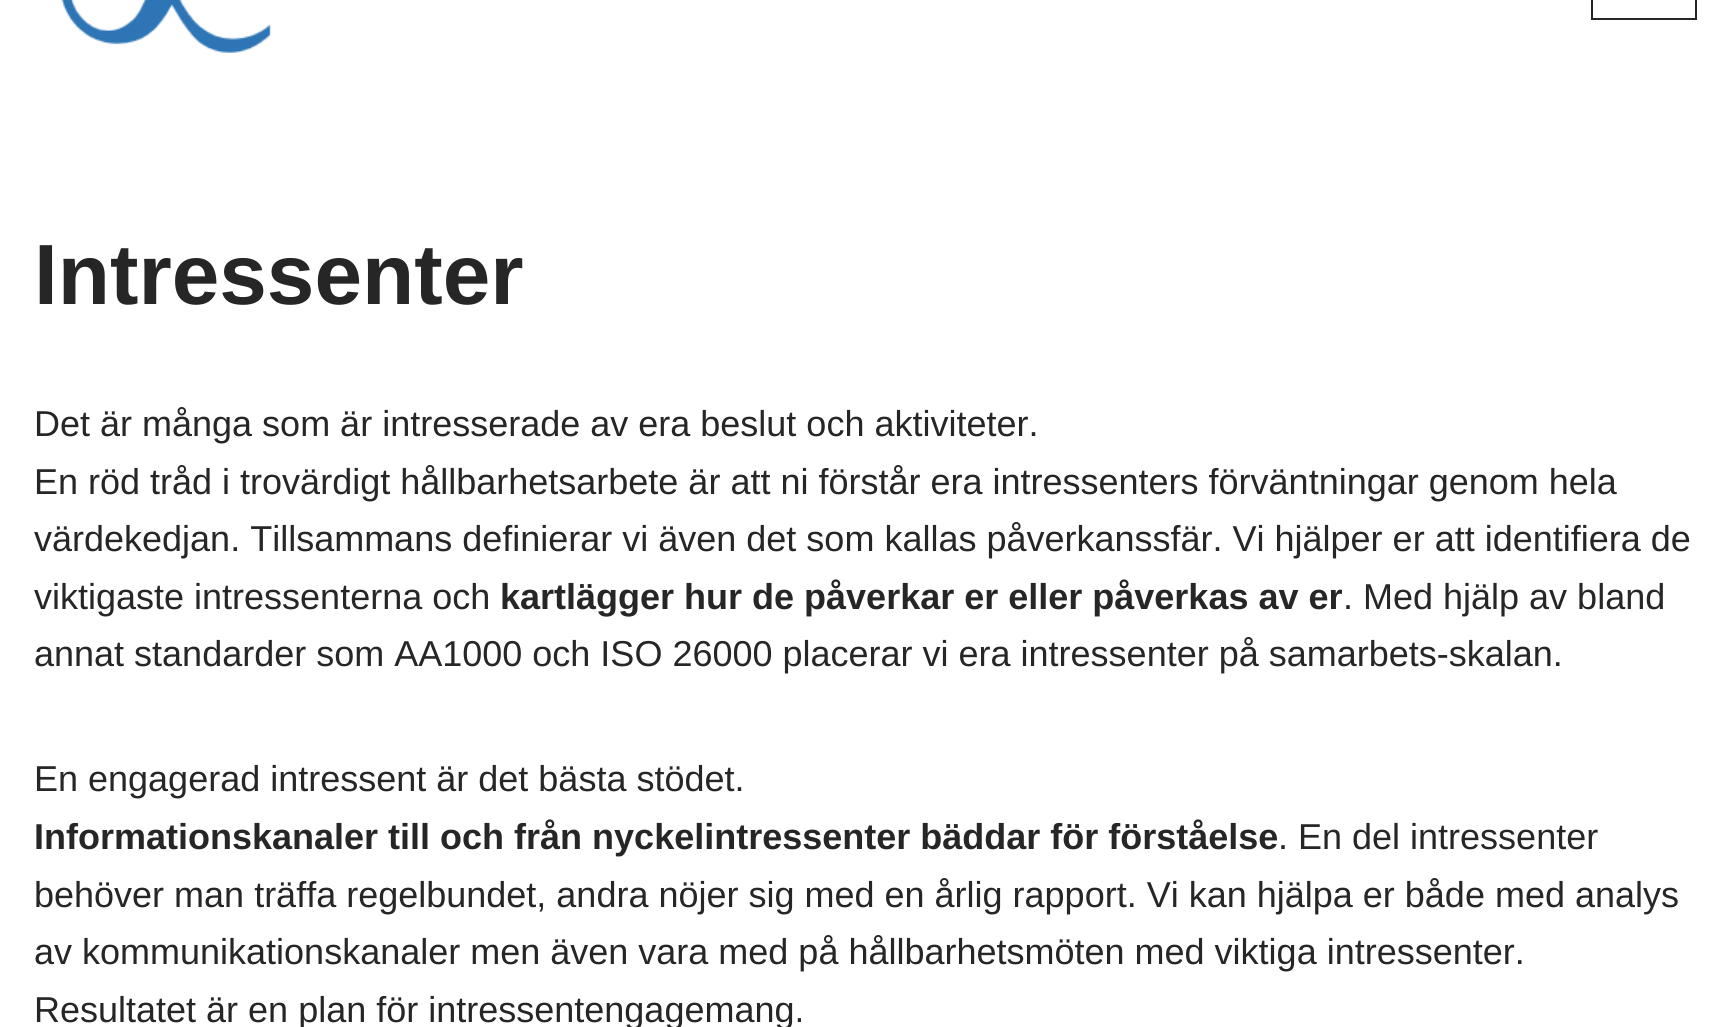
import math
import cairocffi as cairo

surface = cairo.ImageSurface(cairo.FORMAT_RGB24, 1730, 1027)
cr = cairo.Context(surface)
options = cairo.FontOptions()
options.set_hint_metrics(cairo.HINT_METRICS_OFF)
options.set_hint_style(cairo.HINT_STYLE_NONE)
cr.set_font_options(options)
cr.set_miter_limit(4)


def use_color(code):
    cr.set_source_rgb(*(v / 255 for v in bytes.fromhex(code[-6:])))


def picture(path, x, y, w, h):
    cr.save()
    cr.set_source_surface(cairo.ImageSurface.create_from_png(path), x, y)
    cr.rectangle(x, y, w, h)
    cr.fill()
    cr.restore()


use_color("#ffffff")
cr.paint()
picture("img1.png", 61, 0, 211, 53)
cr.rectangle(1592, -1, 104, 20)
use_color("#272626")
cr.stroke()
cr.select_font_face("Liberation Sans", cairo.FONT_SLANT_NORMAL, cairo.FONT_WEIGHT_BOLD)
cr.set_font_size(85.5)
cr.move_to(34, 304)
cr.show_text("Intressenter")
cr.select_font_face("Liberation Sans")
cr.set_font_size(36)
cr.move_to(34, 436)
cr.show_text("Det är många som är intresserade av era beslut och aktiviteter.")
cr.move_to(34, 494)
cr.show_text("En röd tråd i trovärdigt hållbarhetsarbete är att ni förstår era intressenters förväntningar genom hela")
cr.move_to(34, 551)
cr.show_text("värdekedjan. Tillsammans definierar vi även det som kallas påverkanssfär. Vi hjälper er att identifiera de")
cr.move_to(34, 609)
cr.show_text("viktigaste intressenterna och")
cr.select_font_face("Liberation Sans", cairo.FONT_SLANT_NORMAL, cairo.FONT_WEIGHT_BOLD)
cr.move_to(500, 609)
cr.show_text("kartlägger hur de påverkar er eller påverkas av er")
cr.select_font_face("Liberation Sans")
cr.move_to(1343, 609)
cr.show_text(". Med hjälp av bland")
cr.move_to(34, 666)
cr.show_text("annat standarder som AA1000 och ISO 26000 placerar vi era intressenter på samarbets-skalan.")
cr.move_to(34, 791)
cr.show_text("En engagerad intressent är det bästa stödet.")
cr.select_font_face("Liberation Sans", cairo.FONT_SLANT_NORMAL, cairo.FONT_WEIGHT_BOLD)
cr.move_to(34, 849)
cr.show_text("Informationskanaler till och från nyckelintressenter bäddar för förståelse")
cr.select_font_face("Liberation Sans")
cr.move_to(1278, 849)
cr.show_text(". En del intressenter")
cr.move_to(34, 907)
cr.show_text("behöver man träffa regelbundet, andra nöjer sig med en årlig rapport. Vi kan hjälpa er både med analys")
cr.move_to(34, 964)
cr.show_text("av kommunikationskanaler men även vara med på hållbarhetsmöten med viktiga intressenter.")
cr.move_to(34, 1022)
cr.show_text("Resultatet är en plan för intressentengagemang.")
surface.write_to_png("result.png")
